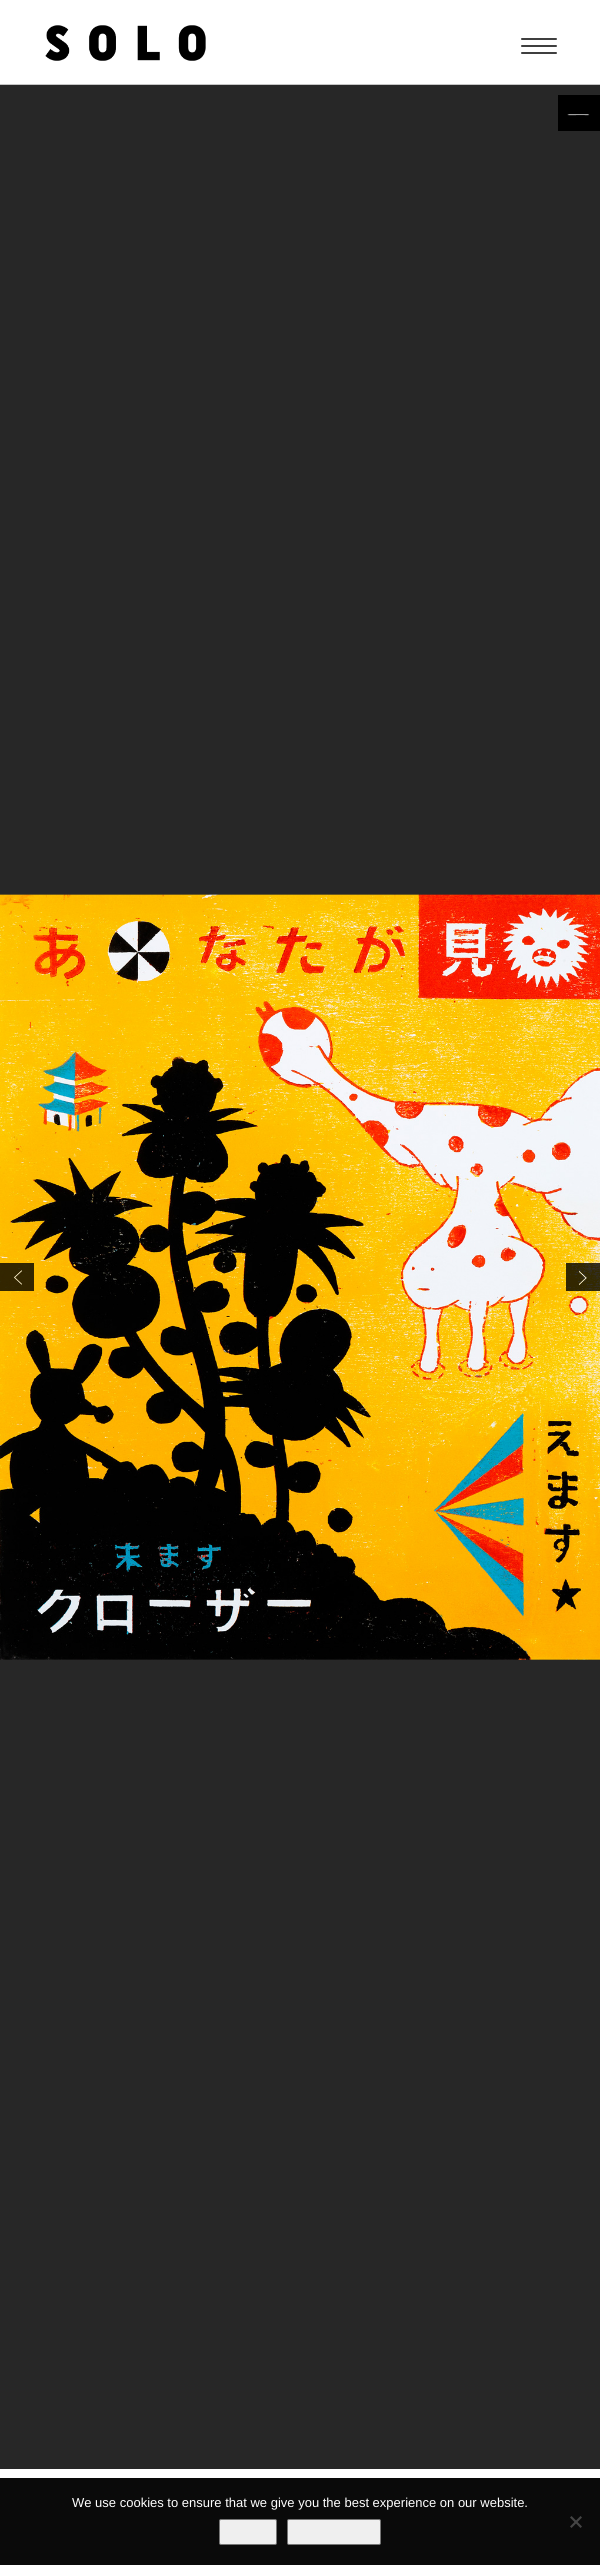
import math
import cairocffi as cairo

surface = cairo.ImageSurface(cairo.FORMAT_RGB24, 600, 2565)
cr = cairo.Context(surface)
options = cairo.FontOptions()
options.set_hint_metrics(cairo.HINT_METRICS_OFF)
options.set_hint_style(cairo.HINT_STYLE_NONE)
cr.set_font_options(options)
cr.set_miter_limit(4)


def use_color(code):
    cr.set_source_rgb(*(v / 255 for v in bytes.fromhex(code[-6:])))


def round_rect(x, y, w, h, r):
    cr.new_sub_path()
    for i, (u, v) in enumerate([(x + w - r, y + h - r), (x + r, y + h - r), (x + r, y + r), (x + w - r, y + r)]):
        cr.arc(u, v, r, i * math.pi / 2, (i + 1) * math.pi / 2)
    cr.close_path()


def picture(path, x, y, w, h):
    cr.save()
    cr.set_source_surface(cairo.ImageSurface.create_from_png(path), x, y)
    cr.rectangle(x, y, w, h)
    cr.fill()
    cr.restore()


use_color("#ffffff")
cr.paint()
picture("img1.png", 45, 25, 161, 36)
use_color("#3f3f3f")
round_rect(521, 38, 36, 2, 1)
cr.fill()
round_rect(521, 45, 36, 2, 1)
cr.fill()
round_rect(521, 52, 36, 2, 1)
cr.fill()
use_color("#c5c5c5")
cr.rectangle(0, 84, 600, 1)
cr.fill()
use_color("#272727")
cr.rectangle(0, 85, 600, 2384)
cr.fill()
picture("img2.png", 558, 95, 42, 36)
picture("img3.png", 0, 894, 600, 766)
picture("img4.png", 0, 1263, 34, 28)
picture("img5.png", 566, 1263, 34, 28)
use_color("#0a0a0a")
cr.rectangle(0, 2478, 600, 87)
cr.fill()
cr.select_font_face("Liberation Sans")
cr.set_font_size(13)
use_color("#ffffff")
cr.move_to(72, 2507)
cr.show_text("We use cookies to ensure that we give you the best experience on our website.")
use_color("#efefef")
round_rect(219.5, 2519.5, 57, 25, 1.5)
cr.fill_preserve()
use_color("#767676")
cr.set_line_width(1)
cr.stroke()
use_color("#efefef")
round_rect(287.5, 2519.5, 93, 25, 1.5)
cr.fill_preserve()
use_color("#767676")
cr.stroke()
use_color("#454545")
cr.new_path()
cr.move_to(580.5, 2516)
cr.line_to(582, 2517.5)
cr.line_to(571.5, 2528)
cr.line_to(570, 2526.5)
cr.close_path()
cr.fill()
cr.new_path()
cr.move_to(570, 2517.5)
cr.line_to(571.5, 2516)
cr.line_to(582, 2526.5)
cr.line_to(580.5, 2528)
cr.close_path()
cr.fill()
surface.write_to_png("result.png")
